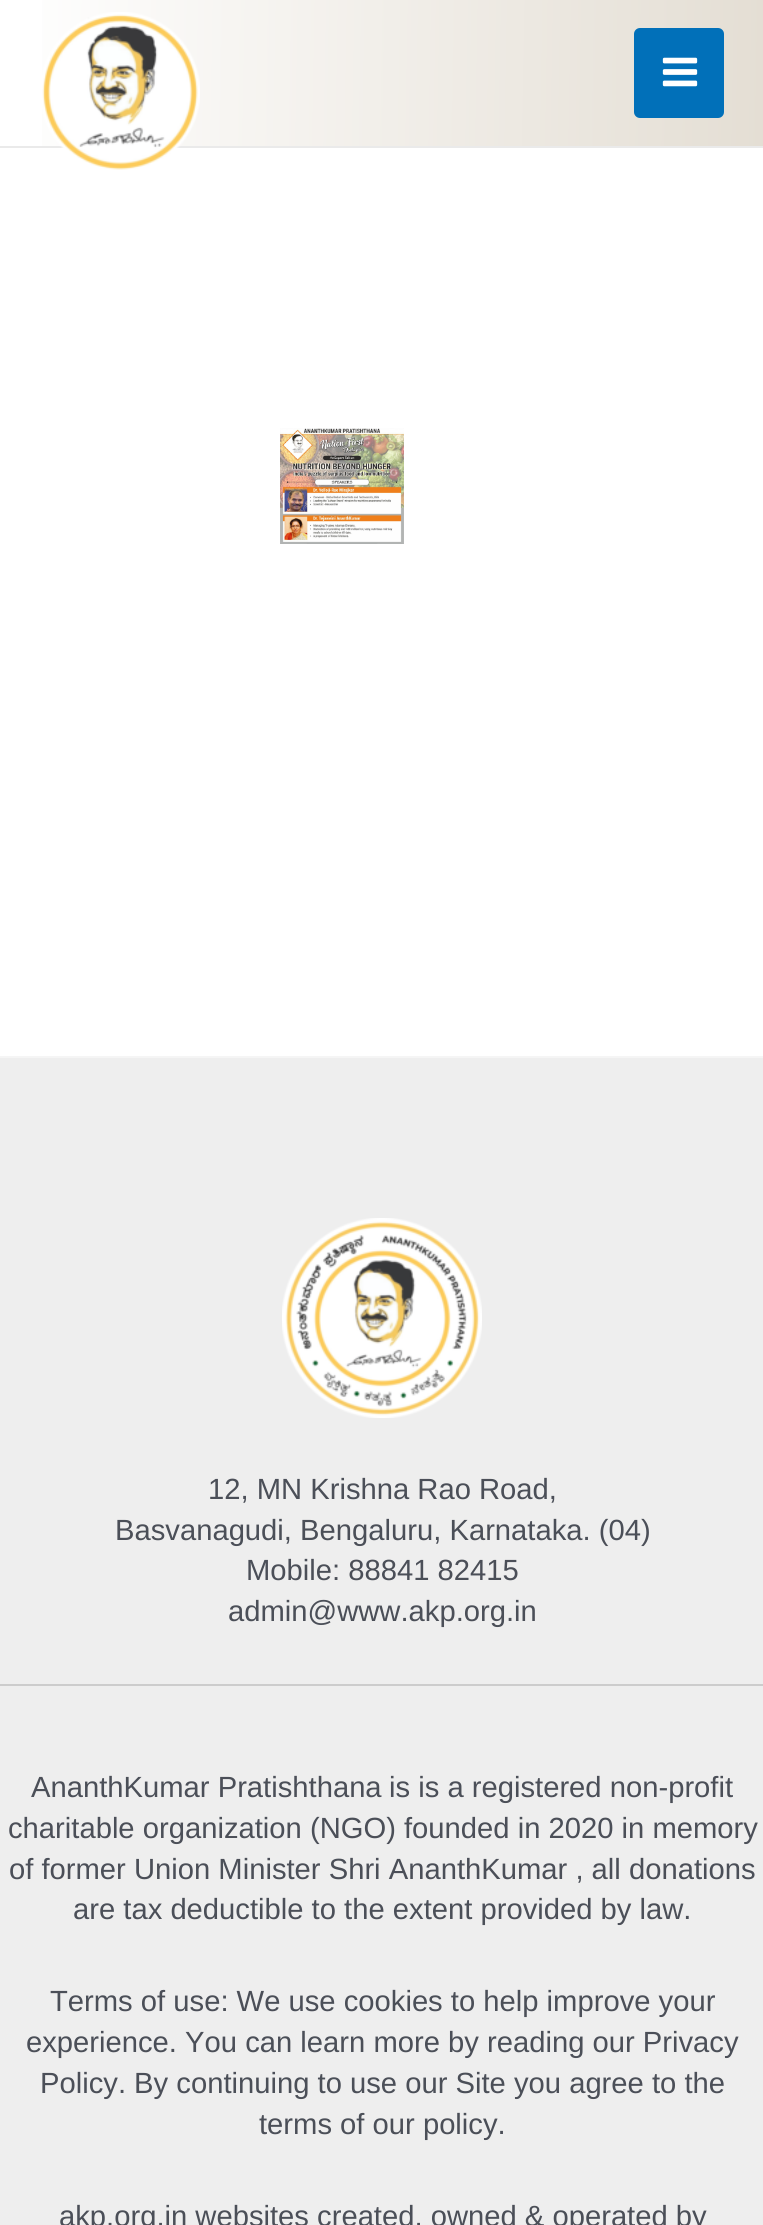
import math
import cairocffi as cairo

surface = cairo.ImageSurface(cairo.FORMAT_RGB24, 763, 2225)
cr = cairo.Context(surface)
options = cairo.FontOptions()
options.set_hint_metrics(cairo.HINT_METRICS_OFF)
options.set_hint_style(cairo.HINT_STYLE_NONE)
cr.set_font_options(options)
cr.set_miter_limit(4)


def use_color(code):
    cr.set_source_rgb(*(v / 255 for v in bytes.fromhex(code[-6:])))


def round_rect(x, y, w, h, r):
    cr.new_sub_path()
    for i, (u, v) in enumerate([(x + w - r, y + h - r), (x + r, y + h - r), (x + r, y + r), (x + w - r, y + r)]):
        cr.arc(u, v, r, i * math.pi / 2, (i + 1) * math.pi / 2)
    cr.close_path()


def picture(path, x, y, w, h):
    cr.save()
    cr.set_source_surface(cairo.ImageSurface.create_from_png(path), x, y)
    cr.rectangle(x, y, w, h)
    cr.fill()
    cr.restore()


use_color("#ffffff")
cr.paint()
gradient = cairo.LinearGradient(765, 80, -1.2, 66)
gradient.add_color_stop_rgba(0, 0.894, 0.871, 0.831, 1)
gradient.add_color_stop_rgba(1, 1, 1, 1, 1)
cr.set_source(gradient)
cr.rectangle(42, 0, 721, 146)
cr.fill()
use_color("#eaeaea")
cr.rectangle(0, 146, 763, 2)
cr.fill()
picture("img1.png", 42, 12, 158, 158)
use_color("#0170b9")
round_rect(634, 28, 90, 90, 6)
cr.fill()
picture("img2.png", 662, 57, 36, 30)
picture("img3.png", 280, 428, 124, 116)
use_color("#eeeeee")
cr.rectangle(0, 1058, 763, 1167)
cr.fill()
use_color("#f5f5f5")
cr.rectangle(0, 1056, 763, 2)
cr.fill()
picture("img4.png", 282, 1218, 200, 200)
cr.select_font_face("Liberation Sans")
cr.set_font_size(29.2)
use_color("#4b4f58")
cr.move_to(208, 1499)
cr.show_text("12, MN Krishna Rao Road,")
cr.move_to(115, 1540)
cr.show_text("Basvanagudi, Bengaluru, Karnataka. (04)")
cr.move_to(246, 1580)
cr.show_text("Mobile: 88841 82415")
cr.move_to(228, 1621)
cr.show_text("admin@www.akp.org.in")
use_color("#cccccc")
cr.rectangle(0, 1684, 763, 2)
cr.fill()
use_color("#4b4f58")
cr.move_to(31, 1797)
cr.show_text("AnanthKumar Pratishthana")
cr.move_to(389, 1797)
cr.show_text("is is a registered non-profit")
cr.move_to(8, 1838)
cr.show_text("charitable organization (NGO) founded in 2020 in memory")
cr.move_to(9, 1879)
cr.show_text("of former Union Minister Shri AnanthKumar , all donations")
cr.move_to(73, 1919)
cr.show_text("are tax deductible to the extent provided by law.")
cr.move_to(50, 2011)
cr.show_text("Terms of use: We use cookies to help improve your")
cr.move_to(26, 2052)
cr.show_text("experience. You can learn more by reading our Privacy")
cr.move_to(40, 2093)
cr.show_text("Policy. By continuing to use our Site you agree to the")
cr.move_to(259, 2134)
cr.show_text("terms of our policy.")
cr.move_to(59, 2226)
cr.show_text("akp.org.in websites created, owned & operated by")
surface.write_to_png("result.png")
